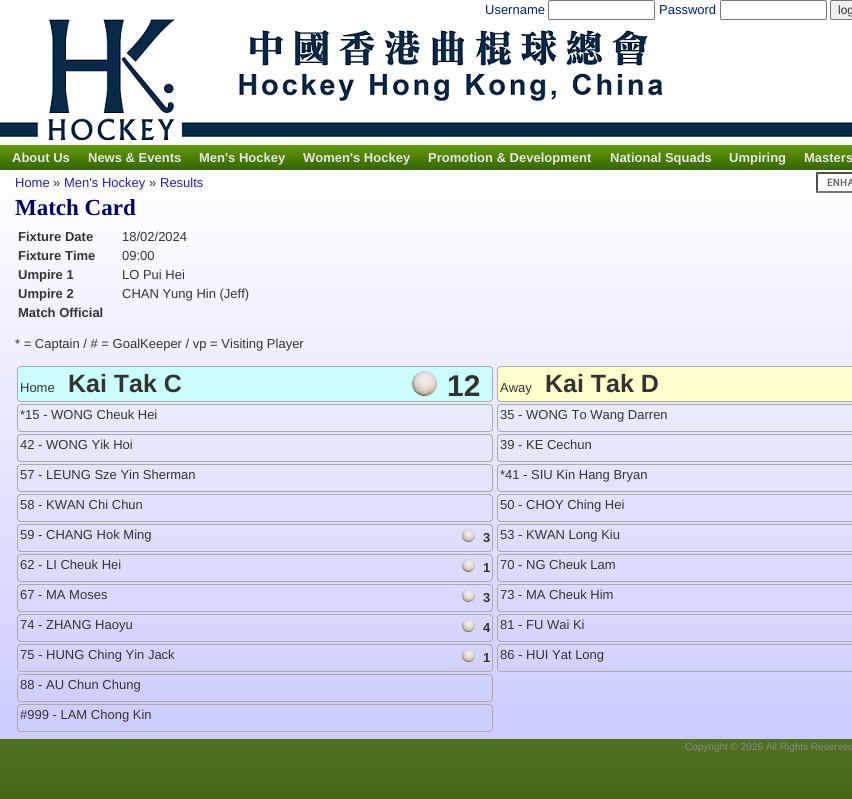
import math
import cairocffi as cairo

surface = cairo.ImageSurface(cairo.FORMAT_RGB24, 852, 799)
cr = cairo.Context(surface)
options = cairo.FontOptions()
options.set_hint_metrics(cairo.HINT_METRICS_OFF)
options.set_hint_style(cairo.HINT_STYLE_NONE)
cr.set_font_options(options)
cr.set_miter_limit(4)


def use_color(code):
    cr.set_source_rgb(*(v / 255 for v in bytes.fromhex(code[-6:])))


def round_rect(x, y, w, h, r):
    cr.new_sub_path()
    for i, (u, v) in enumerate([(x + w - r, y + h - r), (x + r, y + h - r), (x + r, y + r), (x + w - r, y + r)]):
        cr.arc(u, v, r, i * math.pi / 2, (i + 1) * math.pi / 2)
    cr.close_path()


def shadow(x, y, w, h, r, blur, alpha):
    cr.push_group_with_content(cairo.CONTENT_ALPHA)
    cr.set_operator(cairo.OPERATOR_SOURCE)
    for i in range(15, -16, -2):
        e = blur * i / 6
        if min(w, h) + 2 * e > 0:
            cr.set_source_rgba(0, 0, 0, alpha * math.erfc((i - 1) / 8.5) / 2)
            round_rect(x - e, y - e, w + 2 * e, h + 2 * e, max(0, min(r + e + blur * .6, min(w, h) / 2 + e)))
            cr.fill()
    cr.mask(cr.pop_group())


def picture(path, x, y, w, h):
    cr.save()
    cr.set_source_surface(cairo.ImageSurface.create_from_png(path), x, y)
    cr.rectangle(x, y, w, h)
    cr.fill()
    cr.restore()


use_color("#ffffff")
cr.paint()
gradient = cairo.LinearGradient(0, 0, 0, 799)
gradient.add_color_stop_rgba(0, 1, 1, 1, 1)
gradient.add_color_stop_rgba(1, 0.267, 0.4, 0.067, 1)
cr.set_source(gradient)
cr.rectangle(0, 8, 852, 791)
cr.fill()
picture("img1.png", 0, 15, 852, 130)
cr.select_font_face("Liberation Sans")
cr.set_font_size(13)
use_color("#002266")
cr.move_to(485, 14)
cr.show_text("Username")
use_color("#ffffff")
round_rect(548.5, 0.5, 106, 19, 1.5)
cr.fill_preserve()
use_color("#767676")
cr.set_line_width(1)
cr.stroke()
use_color("#002266")
cr.move_to(659, 14)
cr.show_text("Password")
use_color("#ffffff")
round_rect(720.5, 0.5, 106, 19, 1.5)
cr.fill_preserve()
use_color("#767676")
cr.stroke()
use_color("#efefef")
round_rect(830.5, 0.5, 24, 19, 1.5)
cr.fill_preserve()
use_color("#767676")
cr.stroke()
cr.set_font_size(12)
use_color("#333333")
cr.move_to(838, 14)
cr.show_text("log")
use_color("#000000")
shadow(0, 146, 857, 25, 0, 1.5, 0.4)
gradient = cairo.LinearGradient(0, 145, 0, 170)
gradient.add_color_stop_rgba(0, 0.4, 0.6, 0, 1)
gradient.add_color_stop_rgba(1, 0.2, 0.4, 0, 1)
cr.set_source(gradient)
cr.rectangle(0, 145, 852, 25)
cr.fill()
cr.select_font_face("Liberation Sans", cairo.FONT_SLANT_NORMAL, cairo.FONT_WEIGHT_BOLD)
cr.set_font_size(13)
use_color("#e7e5e5")
cr.move_to(12, 162)
cr.show_text("About Us")
cr.move_to(88, 162)
cr.show_text("News & Events")
cr.move_to(199, 162)
cr.show_text("Men's Hockey")
cr.move_to(303, 162)
cr.show_text("Women's Hockey")
cr.move_to(428, 162)
cr.show_text("Promotion & Development")
cr.move_to(610, 162)
cr.show_text("National Squads")
cr.move_to(729, 162)
cr.show_text("Umpiring")
cr.move_to(804, 162)
cr.show_text("Masters")
gradient = cairo.LinearGradient(0, 170, 0, 739)
gradient.add_color_stop_rgba(0, 1, 1, 1, 1)
gradient.add_color_stop_rgba(1, 0.8, 0.8, 1, 1)
cr.set_source(gradient)
cr.rectangle(0, 170, 852, 569)
cr.fill()
picture("img2.png", 827, 178, 25, 8)
use_color("#4f4f4f")
cr.new_path()
cr.move_to(816, 172)
cr.line_to(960, 172)
cr.line_to(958, 174)
cr.line_to(818, 174)
cr.close_path()
cr.fill()
use_color("#767676")
cr.new_path()
cr.move_to(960, 193)
cr.line_to(816, 193)
cr.line_to(818, 191)
cr.line_to(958, 191)
cr.close_path()
cr.fill()
use_color("#4f4f4f")
cr.new_path()
cr.move_to(816, 193)
cr.line_to(816, 172)
cr.line_to(818, 174)
cr.line_to(818, 191)
cr.close_path()
cr.fill()
cr.select_font_face("Liberation Sans")
use_color("#222299")
cr.move_to(15, 187)
cr.show_text("Home")
use_color("#333333")
cr.move_to(53, 187)
cr.show_text("»")
use_color("#222299")
cr.move_to(64, 187)
cr.show_text("Men's Hockey")
use_color("#333333")
cr.move_to(149, 187)
cr.show_text("»")
use_color("#222299")
cr.move_to(160, 187)
cr.show_text("Results")
cr.select_font_face("Liberation Serif", cairo.FONT_SLANT_NORMAL, cairo.FONT_WEIGHT_BOLD)
cr.set_font_size(23)
use_color("#000066")
cr.move_to(15, 215)
cr.show_text("Match Card")
cr.select_font_face("Liberation Sans", cairo.FONT_SLANT_NORMAL, cairo.FONT_WEIGHT_BOLD)
cr.set_font_size(13)
use_color("#333333")
cr.move_to(18, 241)
cr.show_text("Fixture Date")
cr.select_font_face("Liberation Sans")
cr.move_to(122, 241)
cr.show_text("18/02/2024")
cr.select_font_face("Liberation Sans", cairo.FONT_SLANT_NORMAL, cairo.FONT_WEIGHT_BOLD)
cr.move_to(18, 260)
cr.show_text("Fixture Time")
cr.select_font_face("Liberation Sans")
cr.move_to(122, 260)
cr.show_text("09:00")
cr.select_font_face("Liberation Sans", cairo.FONT_SLANT_NORMAL, cairo.FONT_WEIGHT_BOLD)
cr.move_to(18, 279)
cr.show_text("Umpire 1")
cr.select_font_face("Liberation Sans")
cr.move_to(122, 279)
cr.show_text("LO Pui Hei")
cr.select_font_face("Liberation Sans", cairo.FONT_SLANT_NORMAL, cairo.FONT_WEIGHT_BOLD)
cr.move_to(18, 298)
cr.show_text("Umpire 2")
cr.select_font_face("Liberation Sans")
cr.move_to(122, 298)
cr.show_text("CHAN Yung Hin (Jeff)")
cr.select_font_face("Liberation Sans", cairo.FONT_SLANT_NORMAL, cairo.FONT_WEIGHT_BOLD)
cr.move_to(18, 317)
cr.show_text("Match Official")
cr.select_font_face("Liberation Sans")
cr.move_to(15, 348)
cr.show_text("* = Captain / # = GoalKeeper / vp = Visiting Player")
use_color("#ccffff")
round_rect(17.5, 366.5, 475, 35, 3.5)
cr.fill_preserve()
use_color("#aaaaaa")
cr.stroke()
use_color("#333333")
cr.move_to(20, 392)
cr.show_text("Home")
cr.select_font_face("Liberation Sans", cairo.FONT_SLANT_NORMAL, cairo.FONT_WEIGHT_BOLD)
cr.set_font_size(25)
cr.move_to(68, 392)
cr.show_text("Kai Tak C")
picture("img3.png", 412, 371, 25, 25)
cr.set_font_size(30)
cr.move_to(447, 396)
cr.show_text("12")
round_rect(17.5, 404.5, 475, 27, 3.5)
use_color("#aaaaaa")
cr.stroke()
cr.select_font_face("Liberation Sans")
cr.set_font_size(13)
use_color("#333333")
cr.move_to(20, 419)
cr.show_text("*15 - WONG Cheuk Hei")
round_rect(17.5, 434.5, 475, 27, 3.5)
use_color("#aaaaaa")
cr.stroke()
use_color("#333333")
cr.move_to(20, 449)
cr.show_text("42 - WONG Yik Hoi")
round_rect(17.5, 464.5, 475, 27, 3.5)
use_color("#aaaaaa")
cr.stroke()
use_color("#333333")
cr.move_to(20, 479)
cr.show_text("57 - LEUNG Sze Yin Sherman")
round_rect(17.5, 494.5, 475, 27, 3.5)
use_color("#aaaaaa")
cr.stroke()
use_color("#333333")
cr.move_to(20, 509)
cr.show_text("58 - KWAN Chi Chun")
round_rect(17.5, 524.5, 475, 27, 3.5)
use_color("#aaaaaa")
cr.stroke()
use_color("#333333")
cr.move_to(20, 539)
cr.show_text("59 - CHANG Hok Ming")
picture("img4.png", 462, 529, 13, 13)
cr.select_font_face("Liberation Sans", cairo.FONT_SLANT_NORMAL, cairo.FONT_WEIGHT_BOLD)
cr.move_to(483, 542)
cr.show_text("3")
round_rect(17.5, 554.5, 475, 27, 3.5)
use_color("#aaaaaa")
cr.stroke()
cr.select_font_face("Liberation Sans")
use_color("#333333")
cr.move_to(20, 569)
cr.show_text("62 - LI Cheuk Hei")
picture("img5.png", 462, 559, 13, 13)
cr.select_font_face("Liberation Sans", cairo.FONT_SLANT_NORMAL, cairo.FONT_WEIGHT_BOLD)
cr.move_to(483, 572)
cr.show_text("1")
round_rect(17.5, 584.5, 475, 27, 3.5)
use_color("#aaaaaa")
cr.stroke()
cr.select_font_face("Liberation Sans")
use_color("#333333")
cr.move_to(20, 599)
cr.show_text("67 - MA Moses")
picture("img6.png", 462, 589, 13, 13)
cr.select_font_face("Liberation Sans", cairo.FONT_SLANT_NORMAL, cairo.FONT_WEIGHT_BOLD)
cr.move_to(483, 602)
cr.show_text("3")
round_rect(17.5, 614.5, 475, 27, 3.5)
use_color("#aaaaaa")
cr.stroke()
cr.select_font_face("Liberation Sans")
use_color("#333333")
cr.move_to(20, 629)
cr.show_text("74 - ZHANG Haoyu")
picture("img7.png", 462, 619, 13, 13)
cr.select_font_face("Liberation Sans", cairo.FONT_SLANT_NORMAL, cairo.FONT_WEIGHT_BOLD)
cr.move_to(483, 632)
cr.show_text("4")
round_rect(17.5, 644.5, 475, 27, 3.5)
use_color("#aaaaaa")
cr.stroke()
cr.select_font_face("Liberation Sans")
use_color("#333333")
cr.move_to(20, 659)
cr.show_text("75 - HUNG Ching Yin Jack")
picture("img8.png", 462, 649, 13, 13)
cr.select_font_face("Liberation Sans", cairo.FONT_SLANT_NORMAL, cairo.FONT_WEIGHT_BOLD)
cr.move_to(483, 662)
cr.show_text("1")
round_rect(17.5, 674.5, 475, 27, 3.5)
use_color("#aaaaaa")
cr.stroke()
cr.select_font_face("Liberation Sans")
use_color("#333333")
cr.move_to(20, 689)
cr.show_text("88 - AU Chun Chung")
round_rect(17.5, 704.5, 475, 27, 3.5)
use_color("#aaaaaa")
cr.stroke()
use_color("#333333")
cr.move_to(20, 719)
cr.show_text("#999 - LAM Chong Kin")
use_color("#ffffcc")
round_rect(497.5, 366.5, 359, 35, 3.5)
cr.fill_preserve()
use_color("#aaaaaa")
cr.stroke()
use_color("#333333")
cr.move_to(500, 392)
cr.show_text("Away")
cr.select_font_face("Liberation Sans", cairo.FONT_SLANT_NORMAL, cairo.FONT_WEIGHT_BOLD)
cr.set_font_size(25)
cr.move_to(545, 392)
cr.show_text("Kai Tak D")
round_rect(497.5, 404.5, 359, 27, 3.5)
use_color("#aaaaaa")
cr.stroke()
cr.select_font_face("Liberation Sans")
cr.set_font_size(13)
use_color("#333333")
cr.move_to(500, 419)
cr.show_text("35 - WONG To Wang Darren")
round_rect(497.5, 434.5, 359, 27, 3.5)
use_color("#aaaaaa")
cr.stroke()
use_color("#333333")
cr.move_to(500, 449)
cr.show_text("39 - KE Cechun")
round_rect(497.5, 464.5, 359, 27, 3.5)
use_color("#aaaaaa")
cr.stroke()
use_color("#333333")
cr.move_to(500, 479)
cr.show_text("*41 - SIU Kin Hang Bryan")
round_rect(497.5, 494.5, 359, 27, 3.5)
use_color("#aaaaaa")
cr.stroke()
use_color("#333333")
cr.move_to(500, 509)
cr.show_text("50 - CHOY Ching Hei")
round_rect(497.5, 524.5, 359, 27, 3.5)
use_color("#aaaaaa")
cr.stroke()
use_color("#333333")
cr.move_to(500, 539)
cr.show_text("53 - KWAN Long Kiu")
round_rect(497.5, 554.5, 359, 27, 3.5)
use_color("#aaaaaa")
cr.stroke()
use_color("#333333")
cr.move_to(500, 569)
cr.show_text("70 - NG Cheuk Lam")
round_rect(497.5, 584.5, 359, 27, 3.5)
use_color("#aaaaaa")
cr.stroke()
use_color("#333333")
cr.move_to(500, 599)
cr.show_text("73 - MA Cheuk Him")
round_rect(497.5, 614.5, 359, 27, 3.5)
use_color("#aaaaaa")
cr.stroke()
use_color("#333333")
cr.move_to(500, 629)
cr.show_text("81 - FU Wai Ki")
round_rect(497.5, 644.5, 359, 27, 3.5)
use_color("#aaaaaa")
cr.stroke()
use_color("#333333")
cr.move_to(500, 659)
cr.show_text("86 - HUI Yat Long")
cr.set_font_size(10)
use_color("#888888")
cr.move_to(685, 750)
cr.show_text("Copyright © 2026 All Rights Reserved")
surface.write_to_png("result.png")
